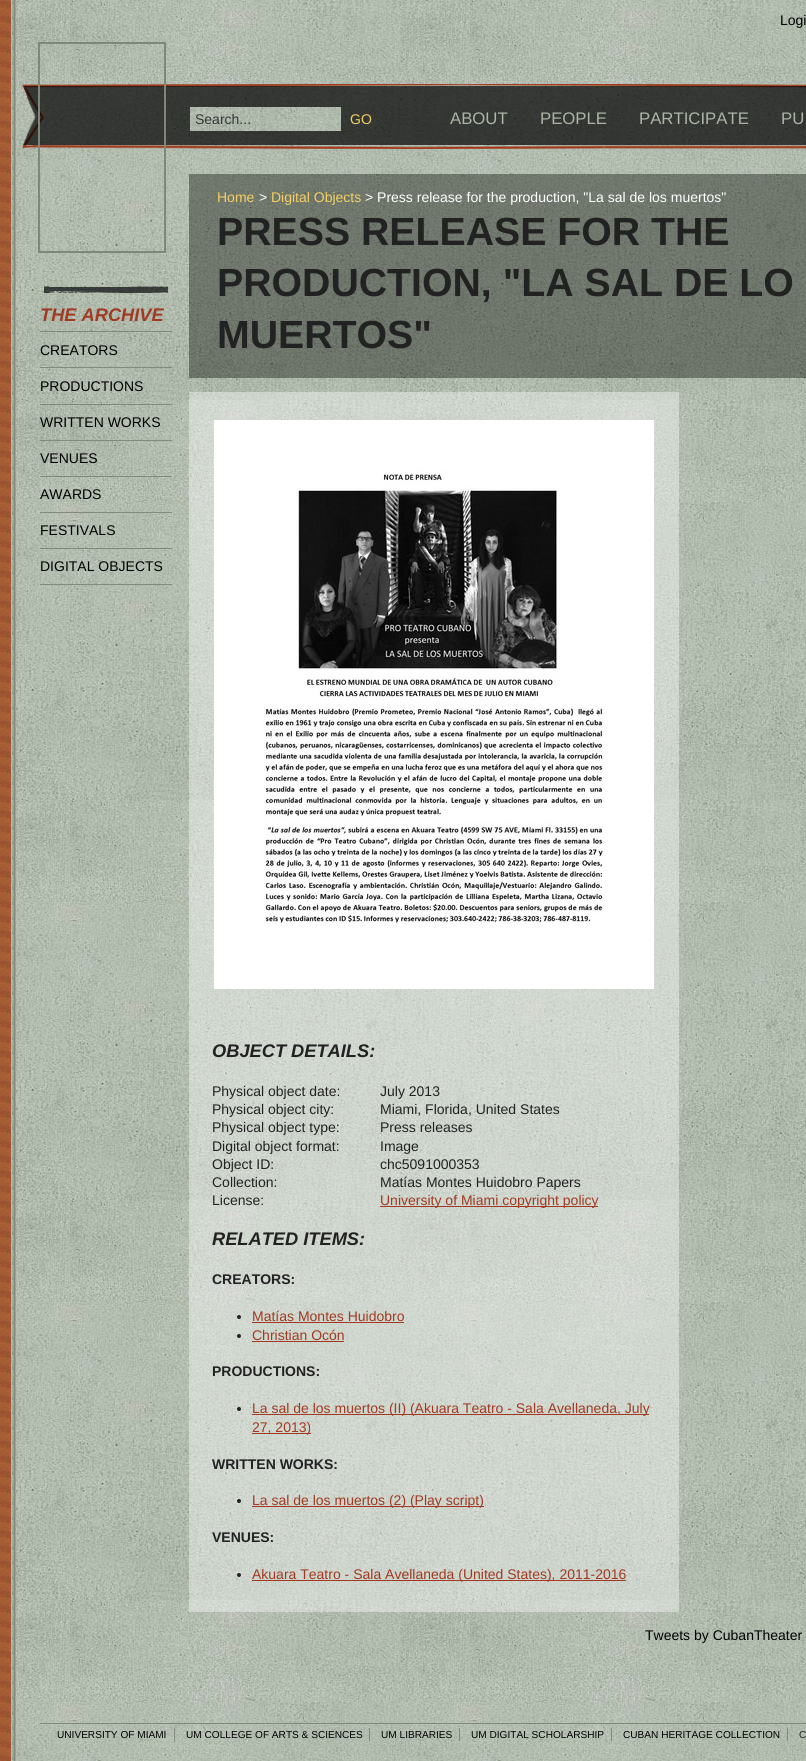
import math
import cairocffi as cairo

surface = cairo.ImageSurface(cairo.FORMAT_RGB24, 806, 1761)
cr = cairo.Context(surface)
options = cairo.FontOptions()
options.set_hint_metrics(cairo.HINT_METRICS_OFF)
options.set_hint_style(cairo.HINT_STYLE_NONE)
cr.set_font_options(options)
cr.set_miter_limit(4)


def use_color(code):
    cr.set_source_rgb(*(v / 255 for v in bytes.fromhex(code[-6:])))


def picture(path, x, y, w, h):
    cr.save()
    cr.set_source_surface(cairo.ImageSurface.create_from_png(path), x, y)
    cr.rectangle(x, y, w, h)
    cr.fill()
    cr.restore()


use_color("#ffffff")
cr.paint()
picture("img1.png", 16, 0, 790, 1761)
picture("img2.png", 0, 0, 16, 1761)
cr.select_font_face("Liberation Sans")
cr.set_font_size(14)
use_color("#000000")
cr.move_to(780, 25)
cr.show_text("Logi")
picture("img3.png", 20, 84, 786, 65)
cr.rectangle(39, 43, 126, 209)
use_color("#7d887b")
cr.stroke()
picture("img4.png", 190, 107, 151, 24)
use_color("#363636")
cr.move_to(195, 124)
cr.show_text("Search...")
use_color("#f4cf63")
cr.move_to(350, 124)
cr.show_text("GO")
cr.set_font_size(16.75)
use_color("#acb5a6")
cr.move_to(450, 124)
cr.show_text("ABOUT")
cr.move_to(540, 124)
cr.show_text("PEOPLE")
cr.move_to(639, 124)
cr.show_text("PARTICIPATE")
cr.move_to(781, 124)
cr.show_text("PU")
picture("img5.png", 44, 286, 124, 7)
use_color("#808b7e")
cr.rectangle(40, 331, 132, 1)
cr.fill()
cr.select_font_face("Liberation Sans", cairo.FONT_SLANT_ITALIC, cairo.FONT_WEIGHT_BOLD)
cr.set_font_size(18.25)
use_color("#a03a22")
cr.move_to(40, 321)
cr.show_text("THE ARCHIVE")
use_color("#808b7e")
cr.rectangle(40, 367, 132, 1)
cr.fill()
cr.select_font_face("Liberation Sans")
cr.set_font_size(14)
use_color("#000000")
cr.move_to(40, 355)
cr.show_text("CREATORS")
use_color("#808b7e")
cr.rectangle(40, 404, 132, 1)
cr.fill()
use_color("#000000")
cr.move_to(40, 391)
cr.show_text("PRODUCTIONS")
use_color("#808b7e")
cr.rectangle(40, 440, 132, 1)
cr.fill()
use_color("#000000")
cr.move_to(40, 427)
cr.show_text("WRITTEN WORKS")
use_color("#808b7e")
cr.rectangle(40, 476, 132, 1)
cr.fill()
use_color("#000000")
cr.move_to(40, 463)
cr.show_text("VENUES")
use_color("#808b7e")
cr.rectangle(40, 512, 132, 1)
cr.fill()
use_color("#000000")
cr.move_to(40, 499)
cr.show_text("AWARDS")
use_color("#808b7e")
cr.rectangle(40, 548, 132, 1)
cr.fill()
use_color("#000000")
cr.move_to(40, 535)
cr.show_text("FESTIVALS")
use_color("#808b7e")
cr.rectangle(40, 584, 132, 1)
cr.fill()
use_color("#000000")
cr.move_to(40, 571)
cr.show_text("DIGITAL OBJECTS")
cr.set_source_rgba(0.051, 0.059, 0.047, 0.4)
cr.rectangle(189, 174, 617, 204)
cr.fill()
use_color("#f4cf63")
cr.move_to(217, 202)
cr.show_text("Home")
use_color("#ffffff")
cr.move_to(259, 202)
cr.show_text(">")
use_color("#f4cf63")
cr.move_to(271, 202)
cr.show_text("Digital Objects")
use_color("#ffffff")
cr.move_to(365, 202)
cr.show_text("> Press release for the production, \"La sal de los muertos\"")
cr.select_font_face("Liberation Sans", cairo.FONT_SLANT_NORMAL, cairo.FONT_WEIGHT_BOLD)
cr.set_font_size(39.25)
use_color("#222222")
cr.move_to(217, 245)
cr.show_text("PRESS RELEASE FOR THE")
cr.move_to(217, 296)
cr.show_text("PRODUCTION, \"LA SAL DE LO")
cr.move_to(217, 348)
cr.show_text("MUERTOS\"")
cr.set_source_rgba(1, 1, 1, 0.4)
cr.rectangle(189, 392, 490, 1220)
cr.fill()
picture("img6.png", 214, 420, 440, 569)
cr.select_font_face("Liberation Sans", cairo.FONT_SLANT_ITALIC, cairo.FONT_WEIGHT_BOLD)
cr.set_font_size(18.25)
use_color("#222222")
cr.move_to(212, 1057)
cr.show_text("OBJECT DETAILS:")
cr.select_font_face("Liberation Sans")
cr.set_font_size(14)
cr.move_to(212, 1096)
cr.show_text("Physical object date:")
cr.move_to(380, 1096)
cr.show_text("July 2013")
cr.move_to(212, 1114)
cr.show_text("Physical object city:")
cr.move_to(380, 1114)
cr.show_text("Miami, Florida, United States")
cr.move_to(212, 1132)
cr.show_text("Physical object type:")
cr.move_to(380, 1132)
cr.show_text("Press releases")
cr.move_to(212, 1151)
cr.show_text("Digital object format:")
cr.move_to(380, 1151)
cr.show_text("Image")
cr.move_to(212, 1169)
cr.show_text("Object ID:")
cr.move_to(380, 1169)
cr.show_text("chc5091000353")
cr.move_to(212, 1187)
cr.show_text("Collection:")
cr.move_to(380, 1187)
cr.show_text("Matías Montes Huidobro Papers")
cr.move_to(212, 1205)
cr.show_text("License:")
use_color("#a03a22")
cr.rectangle(380, 1206, 218, 1)
cr.fill()
cr.move_to(380, 1205)
cr.show_text("University of Miami copyright policy")
cr.select_font_face("Liberation Sans", cairo.FONT_SLANT_ITALIC, cairo.FONT_WEIGHT_BOLD)
cr.set_font_size(18.25)
use_color("#222222")
cr.move_to(212, 1245)
cr.show_text("RELATED ITEMS:")
cr.select_font_face("Liberation Sans", cairo.FONT_SLANT_NORMAL, cairo.FONT_WEIGHT_BOLD)
cr.set_font_size(14)
cr.move_to(212, 1284)
cr.show_text("CREATORS:")
cr.new_path()
cr.arc(239, 1317, 2, 0, 2 * math.pi)
cr.fill()
cr.select_font_face("Liberation Sans")
use_color("#a03a22")
cr.move_to(252, 1321)
cr.show_text("Matías Montes Huidobro")
cr.rectangle(252, 1322, 152, 1)
cr.fill()
use_color("#222222")
cr.arc(239, 1336, 2, 0, 2 * math.pi)
cr.fill()
use_color("#a03a22")
cr.move_to(252, 1340)
cr.show_text("Christian Ocón")
cr.rectangle(252, 1341, 92, 1)
cr.fill()
cr.select_font_face("Liberation Sans", cairo.FONT_SLANT_NORMAL, cairo.FONT_WEIGHT_BOLD)
use_color("#222222")
cr.move_to(212, 1376)
cr.show_text("PRODUCTIONS:")
cr.new_path()
cr.arc(239, 1409, 2, 0, 2 * math.pi)
cr.fill()
use_color("#a03a22")
cr.rectangle(252, 1414, 397, 1)
cr.fill()
cr.select_font_face("Liberation Sans")
cr.move_to(252, 1413)
cr.show_text("La sal de los muertos (II) (Akuara Teatro - Sala Avellaneda, July")
cr.rectangle(252, 1433, 59, 1)
cr.fill()
cr.move_to(252, 1432)
cr.show_text("27, 2013)")
cr.select_font_face("Liberation Sans", cairo.FONT_SLANT_NORMAL, cairo.FONT_WEIGHT_BOLD)
use_color("#222222")
cr.move_to(212, 1469)
cr.show_text("WRITTEN WORKS:")
cr.new_path()
cr.arc(239, 1501, 2, 0, 2 * math.pi)
cr.fill()
use_color("#a03a22")
cr.rectangle(252, 1506, 232, 1)
cr.fill()
cr.select_font_face("Liberation Sans")
cr.move_to(252, 1505)
cr.show_text("La sal de los muertos (2) (Play script)")
cr.select_font_face("Liberation Sans", cairo.FONT_SLANT_NORMAL, cairo.FONT_WEIGHT_BOLD)
use_color("#222222")
cr.move_to(212, 1542)
cr.show_text("VENUES:")
cr.new_path()
cr.arc(239, 1575, 2, 0, 2 * math.pi)
cr.fill()
use_color("#a03a22")
cr.rectangle(252, 1580, 374, 1)
cr.fill()
cr.select_font_face("Liberation Sans")
cr.move_to(252, 1579)
cr.show_text("Akuara Teatro - Sala Avellaneda (United States), 2011-2016")
use_color("#000000")
cr.move_to(645, 1640)
cr.show_text("Tweets by CubanTheater")
use_color("#808b7e")
cr.rectangle(40, 1723, 766, 1)
cr.fill()
cr.rectangle(174, 1728, 1, 13)
cr.fill()
cr.set_font_size(10.1)
use_color("#000000")
cr.move_to(57, 1738)
cr.show_text("UNIVERSITY OF MIAMI")
use_color("#808b7e")
cr.rectangle(369, 1728, 1, 13)
cr.fill()
use_color("#000000")
cr.move_to(186, 1738)
cr.show_text("UM COLLEGE OF ARTS & SCIENCES")
use_color("#808b7e")
cr.rectangle(459, 1728, 1, 13)
cr.fill()
use_color("#000000")
cr.move_to(381, 1738)
cr.show_text("UM LIBRARIES")
use_color("#808b7e")
cr.rectangle(611, 1728, 1, 13)
cr.fill()
use_color("#000000")
cr.move_to(471, 1738)
cr.show_text("UM DIGITAL SCHOLARSHIP")
use_color("#808b7e")
cr.rectangle(787, 1728, 1, 13)
cr.fill()
use_color("#000000")
cr.move_to(623, 1738)
cr.show_text("CUBAN HERITAGE COLLECTION")
use_color("#222222")
cr.move_to(799, 1738)
cr.show_text("C")
surface.write_to_png("result.png")
